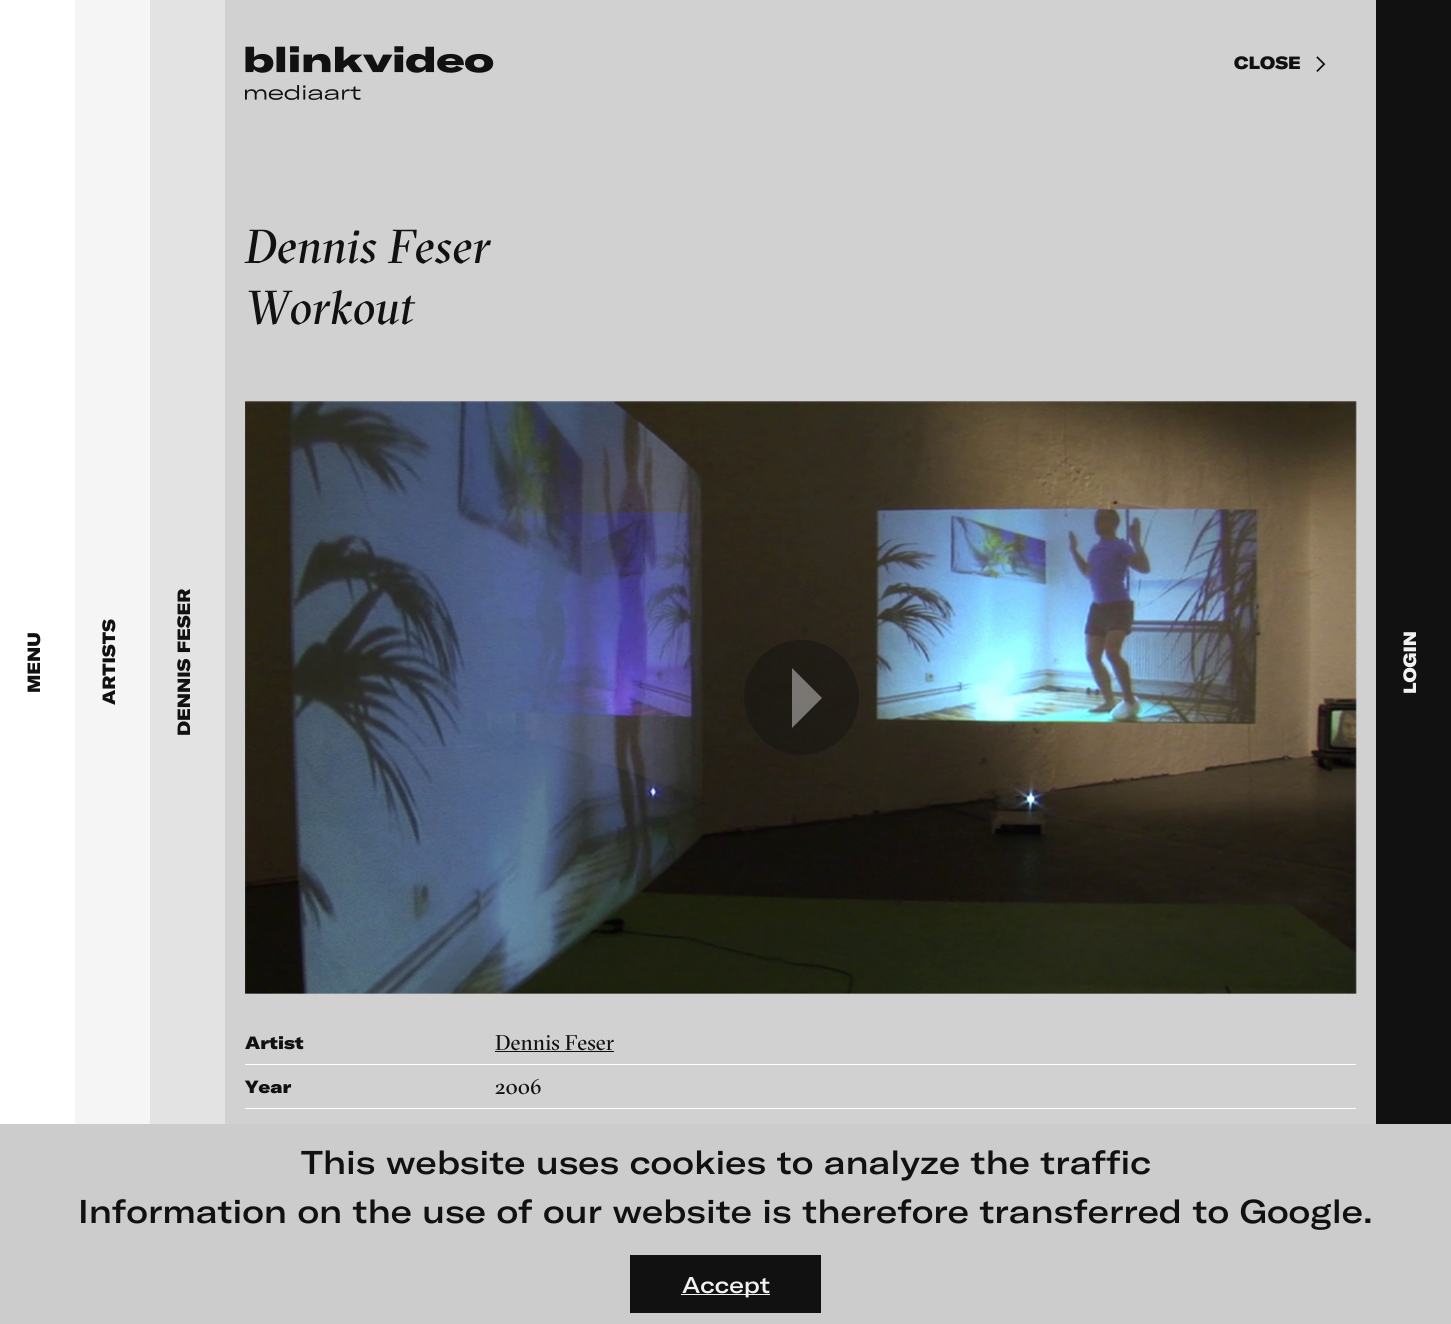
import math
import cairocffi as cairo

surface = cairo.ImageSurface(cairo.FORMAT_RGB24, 1451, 1324)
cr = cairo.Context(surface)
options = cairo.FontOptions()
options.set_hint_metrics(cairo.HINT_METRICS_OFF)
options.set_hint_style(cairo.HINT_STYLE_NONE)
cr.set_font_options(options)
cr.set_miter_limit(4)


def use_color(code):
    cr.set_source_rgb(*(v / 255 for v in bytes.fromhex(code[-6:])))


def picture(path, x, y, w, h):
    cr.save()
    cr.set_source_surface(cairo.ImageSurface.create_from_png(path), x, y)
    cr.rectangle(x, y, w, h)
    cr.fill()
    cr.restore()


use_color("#ffffff")
cr.paint()
cr.select_font_face("GT America Black")
cr.set_font_size(17.5)
use_color("#111111")
cr.save()
cr.translate(40, 693)
cr.rotate(-90 * math.pi / 180)
cr.move_to(0, 0)
cr.show_text("MENU")
cr.restore()
use_color("#f5f5f5")
cr.rectangle(75, 0, 75, 1124)
cr.fill()
cr.save()
cr.new_path()
cr.move_to(100, 705.5)
cr.line_to(100, 619.5)
cr.line_to(117.5, 619.5)
cr.line_to(117.5, 705.5)
cr.close_path()
cr.clip()
use_color("#111111")
cr.save()
cr.translate(115, 705)
cr.rotate(-90 * math.pi / 180)
cr.move_to(0, 0)
cr.show_text("ARTISTS")
cr.restore()
cr.restore()
use_color("#e3e3e3")
cr.rectangle(150, 0, 75, 1124)
cr.fill()
use_color("#111111")
cr.save()
cr.translate(190, 736)
cr.rotate(-90 * math.pi / 180)
cr.move_to(0, 0)
cr.show_text("DENNIS FESER")
cr.restore()
use_color("#d1d1d1")
cr.rectangle(225, 0, 1151, 1124)
cr.fill()
use_color("#111111")
cr.move_to(1234, 69)
cr.show_text("CLOSE")
picture("img1.png", 1316, 56, 10, 16)
picture("img2.png", 245, 46, 249, 54)
cr.select_font_face("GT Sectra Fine", cairo.FONT_SLANT_ITALIC)
cr.set_font_size(47.5)
cr.move_to(245, 263)
cr.show_text("Dennis Feser")
cr.move_to(245, 324)
cr.show_text("Workout")
picture("img3.png", 245, 401, 1112, 593)
cr.set_source_rgba(0.067, 0.067, 0.067, 0.4)
cr.arc(801.5, 697.5, 57.5, 0, 2 * math.pi)
cr.fill()
cr.set_source_rgba(1, 1, 1, 0.4)
cr.new_path()
cr.move_to(792, 728)
cr.line_to(822, 698)
cr.line_to(792, 668)
cr.close_path()
cr.fill()
use_color("#ffffff")
cr.rectangle(245, 1064, 1111, 1)
cr.fill()
cr.select_font_face("GT America Black")
cr.set_font_size(17.5)
use_color("#111111")
cr.move_to(245, 1049)
cr.show_text("Artist")
cr.select_font_face("GT Sectra Fine")
cr.set_font_size(21.25)
cr.move_to(495, 1050)
cr.show_text("Dennis Feser")
cr.rectangle(495, 1051, 119, 1)
cr.fill()
use_color("#ffffff")
cr.rectangle(245, 1108, 1111, 1)
cr.fill()
cr.select_font_face("GT America Black")
cr.set_font_size(17.5)
use_color("#111111")
cr.move_to(245, 1093)
cr.show_text("Year")
cr.select_font_face("GT Sectra Fine")
cr.set_font_size(21.25)
cr.move_to(495, 1094)
cr.show_text("2006")
cr.rectangle(1376, 0, 75, 1124)
cr.fill()
cr.select_font_face("GT America Black")
cr.set_font_size(17.5)
use_color("#f1f1f1")
cr.save()
cr.translate(1416, 694)
cr.rotate(-90 * math.pi / 180)
cr.move_to(0, 0)
cr.show_text("LOGIN")
cr.restore()
use_color("#cccccc")
cr.rectangle(0, 1124, 1451, 200)
cr.fill()
cr.select_font_face("GT America Medium")
cr.set_font_size(32.5)
use_color("#111111")
cr.move_to(301, 1174)
cr.show_text("This website uses cookies to analyze the traffic")
cr.move_to(78, 1223)
cr.show_text("Information on the use of our website is therefore transferred to Google.")
cr.rectangle(630, 1255, 191, 58)
cr.fill()
use_color("#f1f1f1")
cr.rectangle(681, 1294, 89, 1)
cr.fill()
cr.set_font_size(22.5)
cr.move_to(682, 1293)
cr.show_text("Accept")
surface.write_to_png("result.png")
